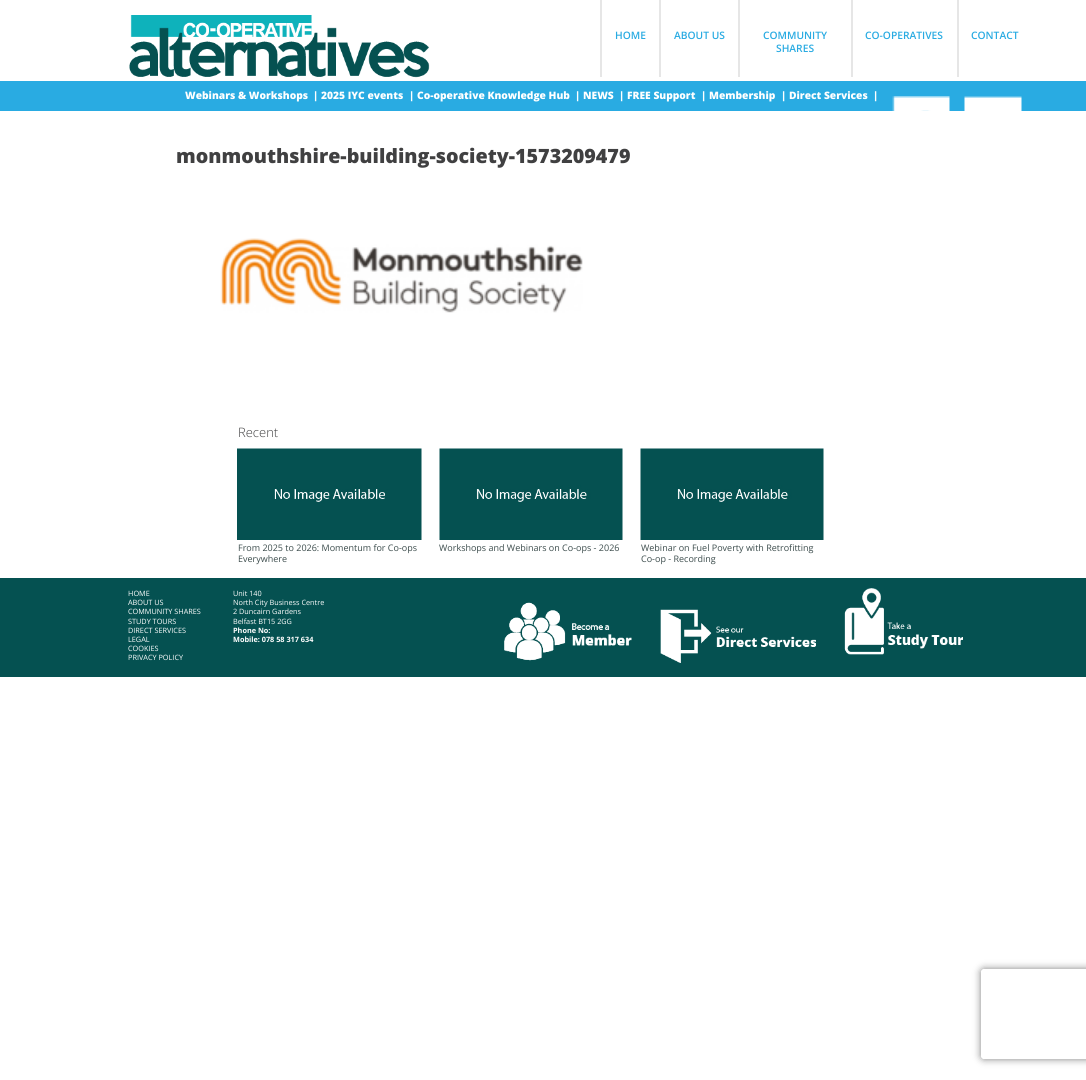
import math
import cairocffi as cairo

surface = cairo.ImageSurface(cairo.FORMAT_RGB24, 1086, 1080)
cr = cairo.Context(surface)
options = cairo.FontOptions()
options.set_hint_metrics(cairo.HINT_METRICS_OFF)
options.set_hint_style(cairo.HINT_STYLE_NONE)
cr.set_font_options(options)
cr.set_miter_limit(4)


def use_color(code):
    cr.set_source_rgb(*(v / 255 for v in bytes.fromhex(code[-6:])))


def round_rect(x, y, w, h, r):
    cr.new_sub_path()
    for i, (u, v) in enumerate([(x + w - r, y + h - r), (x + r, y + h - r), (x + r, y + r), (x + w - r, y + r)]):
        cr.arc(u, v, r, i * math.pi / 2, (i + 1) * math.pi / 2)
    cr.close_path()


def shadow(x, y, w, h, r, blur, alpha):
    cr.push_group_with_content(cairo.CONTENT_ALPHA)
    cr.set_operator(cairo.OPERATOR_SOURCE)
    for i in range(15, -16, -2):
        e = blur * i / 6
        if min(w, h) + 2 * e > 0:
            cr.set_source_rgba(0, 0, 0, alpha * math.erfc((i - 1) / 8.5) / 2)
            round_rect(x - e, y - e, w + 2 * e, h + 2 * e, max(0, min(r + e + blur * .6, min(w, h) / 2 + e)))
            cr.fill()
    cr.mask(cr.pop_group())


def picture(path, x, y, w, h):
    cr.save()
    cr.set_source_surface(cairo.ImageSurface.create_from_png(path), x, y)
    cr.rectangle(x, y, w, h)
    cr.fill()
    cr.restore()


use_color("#ffffff")
cr.paint()
picture("img1.png", 129, 15, 301, 63)
use_color("#e6e6e6")
cr.rectangle(600, 0, 2, 77)
cr.fill()
cr.select_font_face("Open Sans SemiBold")
cr.set_font_size(10.25)
use_color("#29abe2")
cr.move_to(615, 39)
cr.show_text("HOME")
use_color("#e6e6e6")
cr.rectangle(659, 0, 2, 77)
cr.fill()
use_color("#29abe2")
cr.move_to(674, 39)
cr.show_text("ABOUT US")
use_color("#e6e6e6")
cr.rectangle(738, 0, 2, 77)
cr.fill()
use_color("#29abe2")
cr.move_to(763, 39)
cr.show_text("COMMUNITY")
cr.move_to(776, 52)
cr.show_text("SHARES")
use_color("#e6e6e6")
cr.rectangle(851, 0, 2, 77)
cr.fill()
use_color("#29abe2")
cr.move_to(865, 39)
cr.show_text("CO-OPERATIVES")
use_color("#e6e6e6")
cr.rectangle(957, 0, 2, 77)
cr.fill()
use_color("#29abe2")
cr.move_to(971, 39)
cr.show_text("CONTACT")
cr.rectangle(0, 81, 1086, 30)
cr.fill()
cr.select_font_face("Open Sans ExtraBold")
use_color("#ffffff")
cr.move_to(185, 99)
cr.show_text("Webinars & Workshops")
cr.move_to(313, 99)
cr.show_text("|")
cr.move_to(321, 99)
cr.show_text("2025 IYC events")
cr.move_to(409, 99)
cr.show_text("|")
cr.move_to(417, 99)
cr.show_text("Co-operative Knowledge Hub")
cr.move_to(575, 99)
cr.show_text("|")
cr.move_to(583, 99)
cr.show_text("NEWS")
cr.move_to(619, 99)
cr.show_text("|")
cr.move_to(627, 99)
cr.show_text("FREE Support")
cr.move_to(701, 99)
cr.show_text("|")
cr.move_to(709, 99)
cr.show_text("Membership")
cr.move_to(781, 99)
cr.show_text("|")
cr.move_to(789, 99)
cr.show_text("Direct Services")
cr.move_to(873, 99)
cr.show_text("|")
picture("img2.png", 892, 96, 58, 15)
picture("img3.png", 964, 96, 58, 15)
cr.set_font_size(19.7)
use_color("#404041")
cr.move_to(176, 163)
cr.show_text("monmouthshire-building-society-1573209479")
picture("img4.png", 220, 238, 363, 75)
cr.select_font_face("Open Sans Light")
cr.set_font_size(13)
cr.move_to(238, 437)
cr.show_text("Recent")
picture("img5.png", 237, 448, 185, 92)
cr.select_font_face("Open Sans")
cr.set_font_size(9)
use_color("#3c4c4c")
cr.move_to(238, 551)
cr.show_text("From 2025 to 2026: Momentum for Co-ops")
cr.move_to(238, 562)
cr.show_text("Everywhere")
picture("img6.png", 439, 448, 184, 92)
cr.move_to(439, 551)
cr.show_text("Workshops and Webinars on Co-ops - 2026")
picture("img6.png", 640, 448, 184, 92)
cr.move_to(641, 551)
cr.show_text("Webinar on Fuel Poverty with Retrofitting")
cr.move_to(641, 562)
cr.show_text("Co-op - Recording")
use_color("#055151")
cr.rectangle(0, 578, 1086, 99)
cr.fill()
cr.set_font_size(7.3)
use_color("#ffffff")
cr.move_to(128, 596)
cr.show_text("HOME")
cr.move_to(128, 605)
cr.show_text("ABOUT US")
cr.move_to(128, 614)
cr.show_text("COMMUNITY SHARES")
cr.move_to(128, 624)
cr.show_text("STUDY TOURS")
cr.move_to(128, 633)
cr.show_text("DIRECT SERVICES")
cr.move_to(128, 642)
cr.show_text("LEGAL")
cr.move_to(128, 651)
cr.show_text("COOKIES")
cr.move_to(128, 660)
cr.show_text("PRIVACY POLICY")
cr.move_to(233, 596)
cr.show_text("Unit 140")
cr.move_to(233, 605)
cr.show_text("North City Business Centre")
cr.move_to(233, 614)
cr.show_text("2 Duncairn Gardens")
cr.move_to(233, 624)
cr.show_text("Belfast BT15 2GG")
cr.select_font_face("Open Sans", cairo.FONT_SLANT_NORMAL, cairo.FONT_WEIGHT_BOLD)
cr.move_to(233, 633)
cr.show_text("Phone No:")
cr.move_to(233, 642)
cr.show_text("Mobile: 078 58 317 634")
picture("img7.png", 504, 602, 128, 59)
picture("img8.png", 660, 609, 156, 54)
picture("img9.png", 844, 588, 119, 67)
cr.save()
cr.set_fill_rule(cairo.FILL_RULE_EVEN_ODD)
cr.new_path()
cr.move_to(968, 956)
cr.line_to(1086, 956)
cr.line_to(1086, 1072)
cr.line_to(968, 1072)
cr.close_path()
cr.move_to(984, 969)
cr.line_to(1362, 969)
cr.curve_to(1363.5, 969, 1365, 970.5, 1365, 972)
cr.line_to(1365, 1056)
cr.curve_to(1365, 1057.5, 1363.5, 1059, 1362, 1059)
cr.line_to(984, 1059)
cr.curve_to(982.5, 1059, 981, 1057.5, 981, 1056)
cr.line_to(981, 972)
cr.curve_to(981, 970.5, 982.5, 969, 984, 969)
cr.close_path()
cr.clip()
use_color("#808080")
shadow(981, 969, 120, 90, 3, 4, 1)
cr.restore()
surface.write_to_png("result.png")
